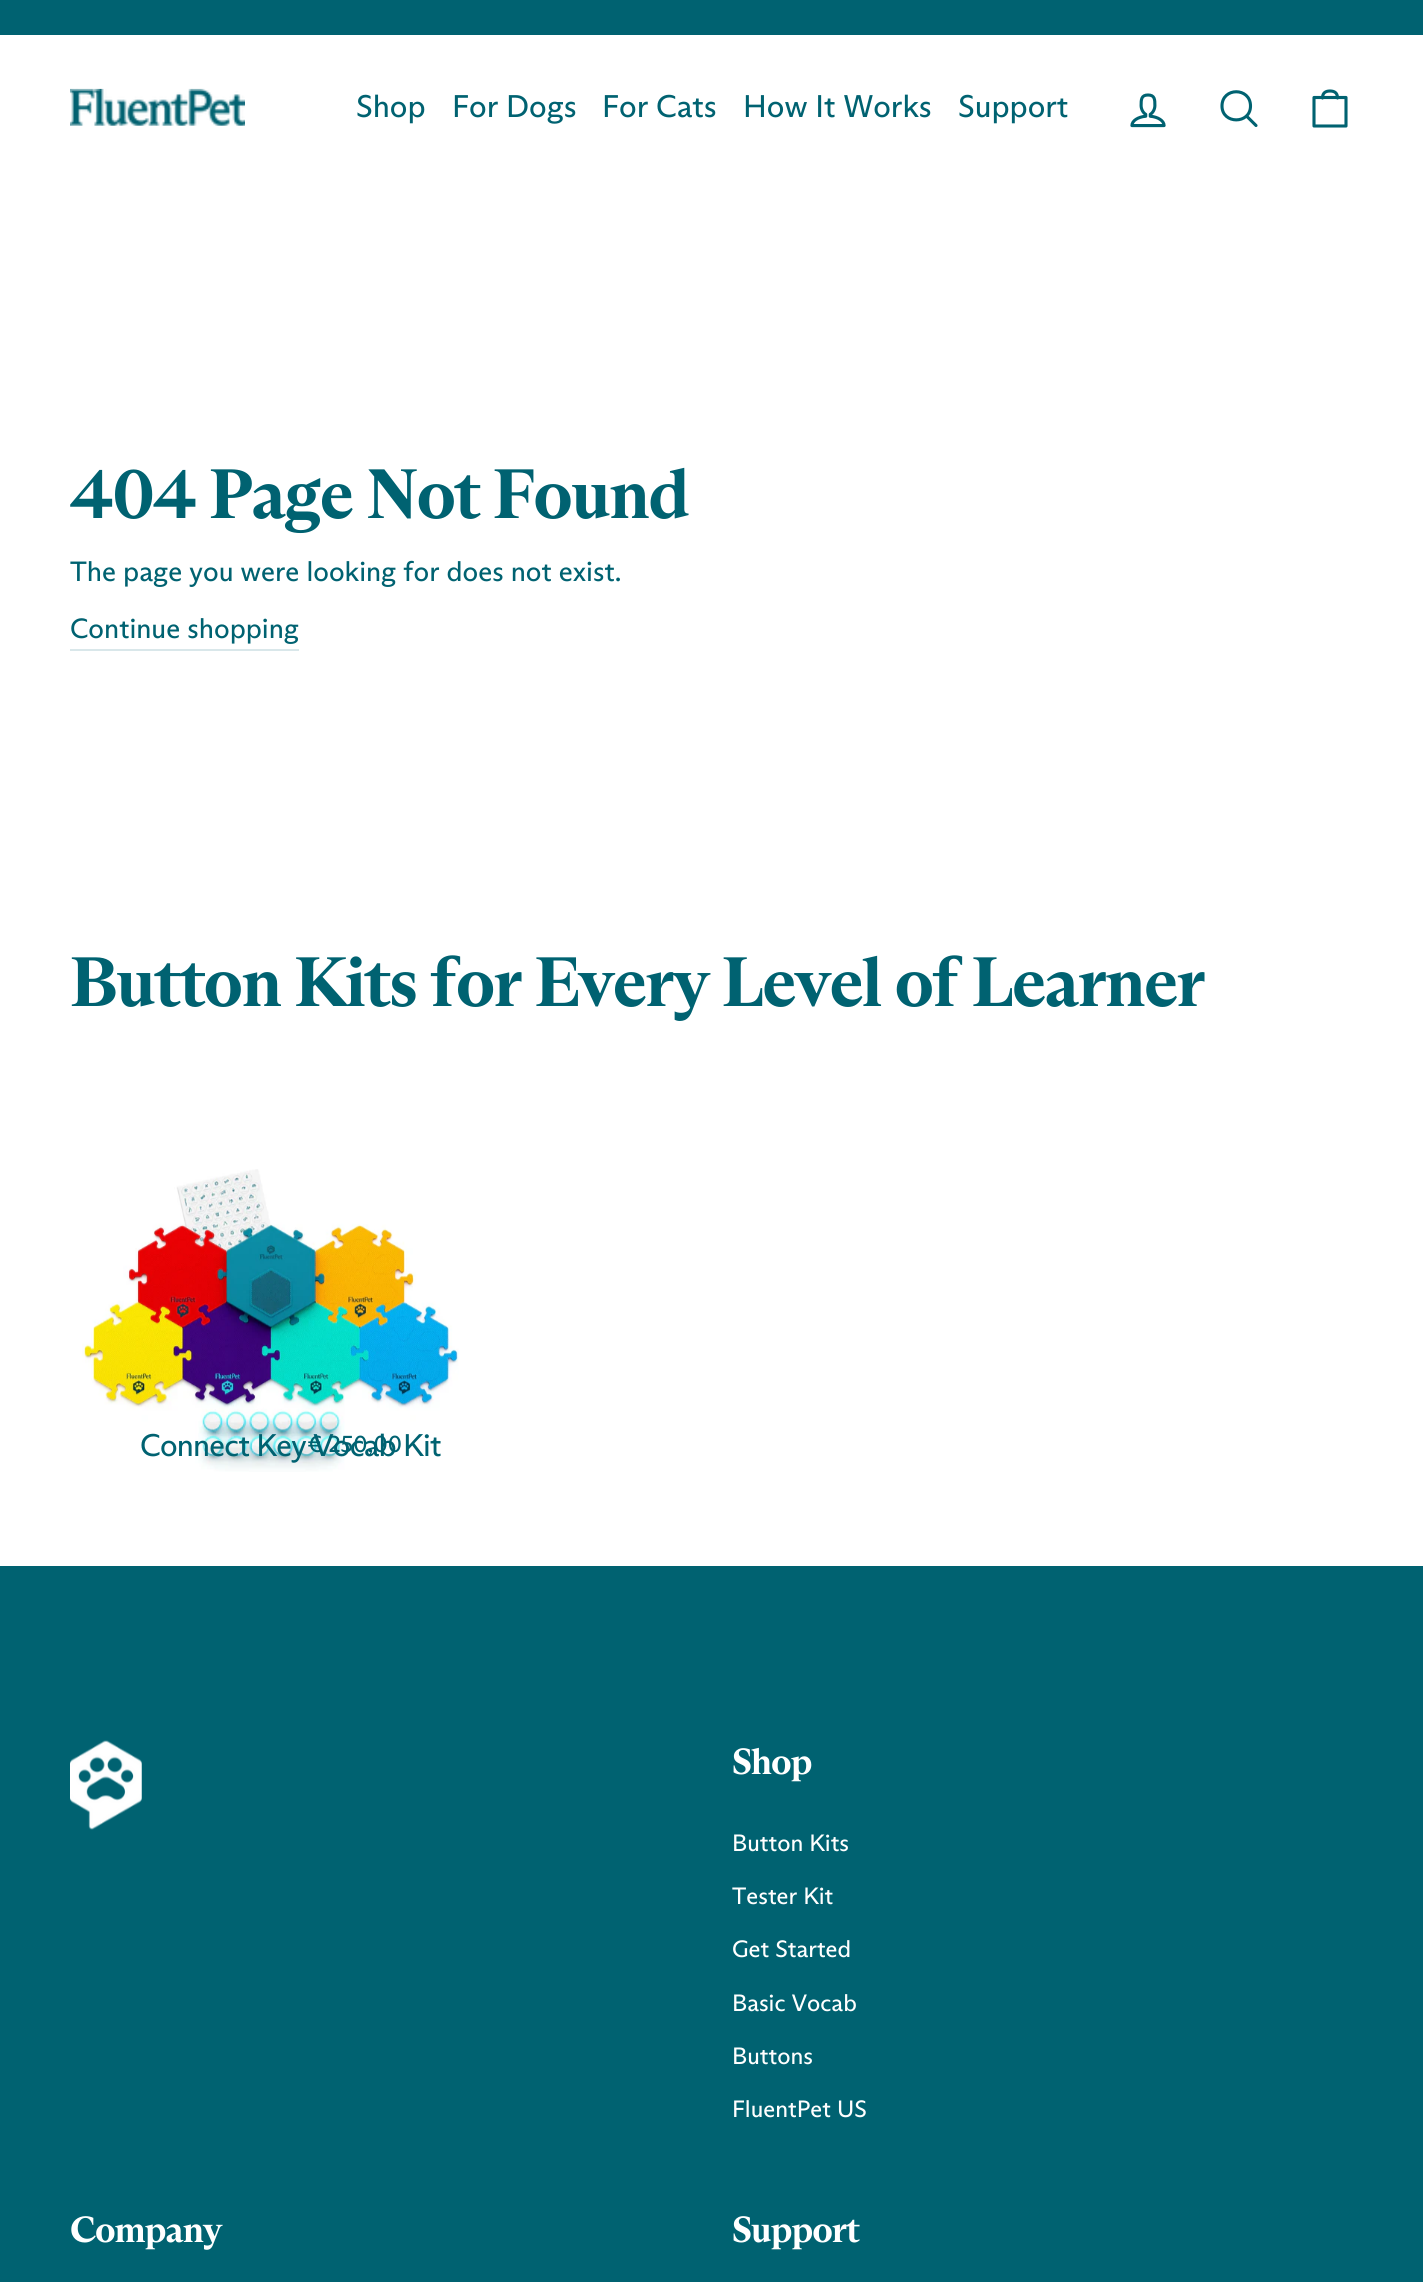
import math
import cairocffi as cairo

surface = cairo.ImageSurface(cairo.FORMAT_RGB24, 1423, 2282)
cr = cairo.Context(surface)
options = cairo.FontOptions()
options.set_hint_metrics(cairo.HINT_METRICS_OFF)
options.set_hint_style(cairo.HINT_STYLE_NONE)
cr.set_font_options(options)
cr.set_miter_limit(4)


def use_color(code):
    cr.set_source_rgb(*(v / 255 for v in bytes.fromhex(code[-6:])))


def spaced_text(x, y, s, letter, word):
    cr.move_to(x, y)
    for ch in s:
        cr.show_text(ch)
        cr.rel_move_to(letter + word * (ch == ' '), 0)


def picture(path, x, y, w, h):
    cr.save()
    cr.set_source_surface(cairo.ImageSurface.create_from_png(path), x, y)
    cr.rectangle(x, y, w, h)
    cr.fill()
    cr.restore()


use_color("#ffffff")
cr.paint()
use_color("#006271")
cr.rectangle(0, 0, 1423, 35)
cr.fill()
picture("img1.png", 70, 88, 175, 38)
cr.select_font_face("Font")
cr.set_font_size(31.5)
cr.move_to(356, 117)
cr.show_text("Shop")
cr.move_to(452, 117)
cr.show_text("For Dogs")
cr.move_to(602, 117)
cr.show_text("For Cats")
cr.move_to(743, 117)
cr.show_text("How It Works")
cr.move_to(958, 117)
cr.show_text("Support")
picture("img2.png", 1130, 93, 36, 35)
cr.new_path()
cr.move_to(1250.5, 106)
cr.curve_to(1250.5, 124.5, 1222, 124.5, 1222, 106)
cr.curve_to(1222, 87, 1250.5, 87, 1250.5, 106)
cr.close_path()
cr.move_to(1256, 125.5)
cr.line_to(1246.5, 116)
cr.set_line_width(3.1)
cr.set_line_cap(cairo.LINE_CAP_ROUND)
cr.set_line_join(cairo.LINE_JOIN_ROUND)
cr.stroke()
cr.new_path()
cr.move_to(1314, 97.5)
cr.line_to(1346, 97.5)
cr.line_to(1346, 126)
cr.line_to(1314, 126)
cr.close_path()
cr.move_to(1322.5, 98)
cr.curve_to(1322.5, 92.5, 1326, 91, 1330, 91)
cr.curve_to(1334, 91, 1337.5, 92.5, 1337.5, 98)
cr.stroke()
cr.select_font_face("Font", cairo.FONT_SLANT_NORMAL, cairo.FONT_WEIGHT_BOLD)
cr.set_font_size(70)
spaced_text(70, 518, "404 Page Not Found", -1.75, 0)
cr.select_font_face("Font")
cr.set_font_size(28)
cr.move_to(70, 581)
cr.show_text("The page you were looking for does not exist.")
use_color("#d9e7ea")
cr.rectangle(70, 649, 229, 2)
cr.fill()
use_color("#006271")
cr.move_to(70, 638)
cr.show_text("Continue shopping")
cr.select_font_face("Font", cairo.FONT_SLANT_NORMAL, cairo.FONT_WEIGHT_BOLD)
cr.set_font_size(70)
spaced_text(70, 1006, "Button Kits for Every Level of Learner", -1.75, 0)
picture("img3.png", 82, 1169, 377, 303)
cr.select_font_face("Font")
cr.set_font_size(31.5)
spaced_text(140, 1456, "Connect Key Vocab Kit", -0.75, 0)
cr.set_font_size(23.75)
cr.move_to(307, 1452)
cr.show_text("€ 250,00")
cr.rectangle(0, 1566, 1423, 716)
cr.fill()
picture("img4.png", 70, 1740, 72, 90)
cr.select_font_face("Font", cairo.FONT_SLANT_NORMAL, cairo.FONT_WEIGHT_BOLD)
cr.set_font_size(36.5)
use_color("#ffffff")
spaced_text(732, 1774, "Shop", -1, 0)
cr.select_font_face("Font")
cr.set_font_size(23.75)
cr.move_to(732, 1851)
cr.show_text("Button Kits")
cr.move_to(732, 1904)
cr.show_text("Tester Kit")
cr.move_to(732, 1957)
cr.show_text("Get Started")
cr.move_to(732, 2011)
cr.show_text("Basic Vocab")
cr.move_to(732, 2064)
cr.show_text("Buttons")
cr.move_to(732, 2117)
cr.show_text("FluentPet US")
cr.select_font_face("Font", cairo.FONT_SLANT_NORMAL, cairo.FONT_WEIGHT_BOLD)
cr.set_font_size(36.5)
spaced_text(70, 2242, "Company", -1, 0)
spaced_text(732, 2242, "Support", -1, 0)
surface.write_to_png("result.png")
